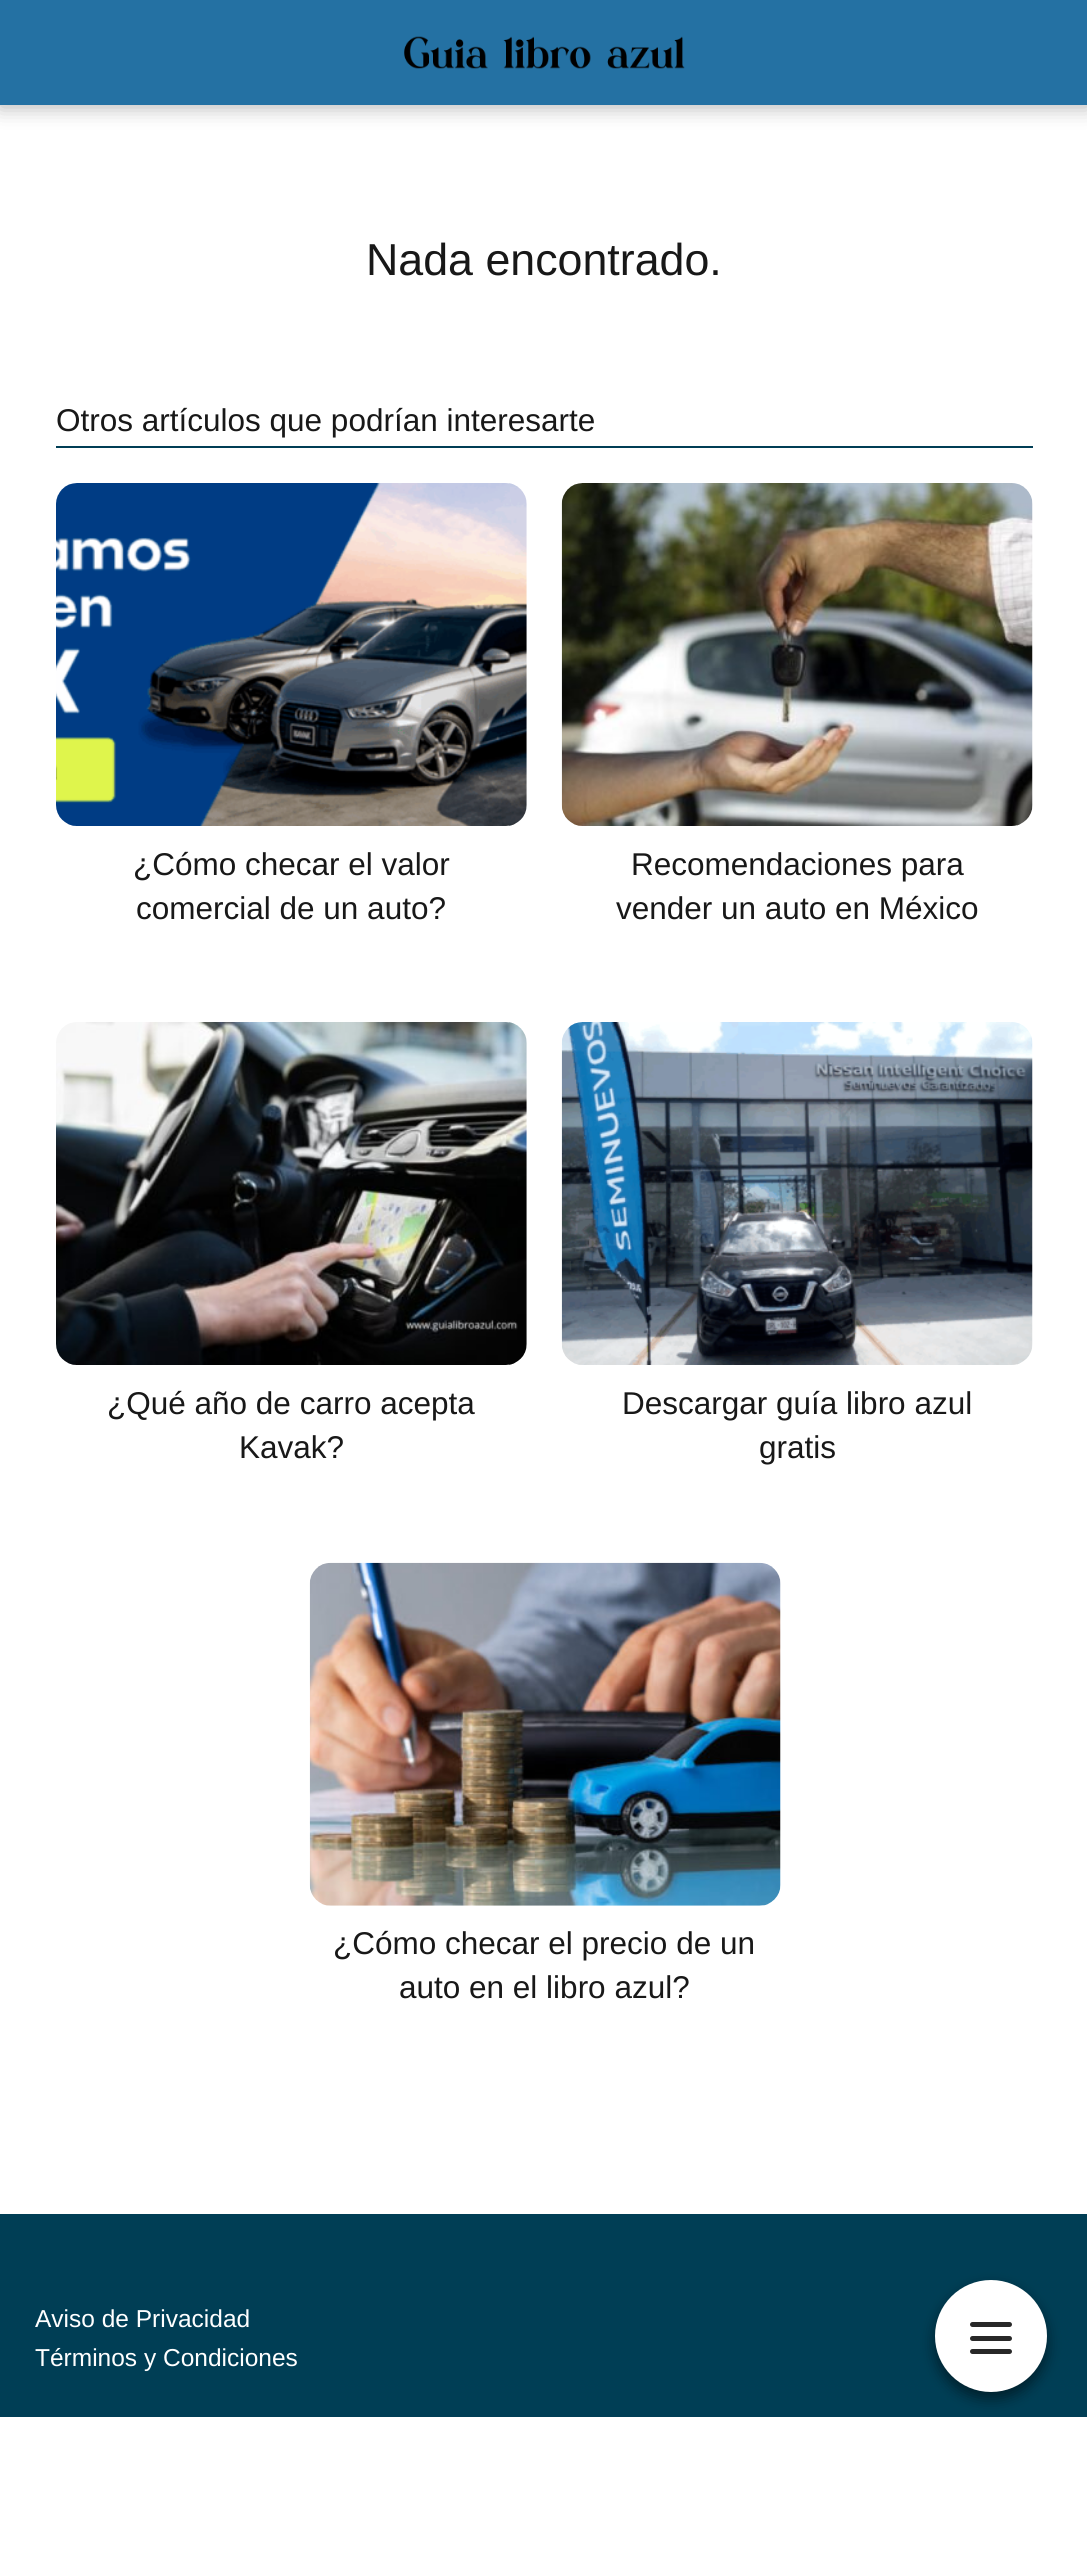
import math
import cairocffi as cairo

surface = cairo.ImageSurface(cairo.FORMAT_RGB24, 1087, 2559)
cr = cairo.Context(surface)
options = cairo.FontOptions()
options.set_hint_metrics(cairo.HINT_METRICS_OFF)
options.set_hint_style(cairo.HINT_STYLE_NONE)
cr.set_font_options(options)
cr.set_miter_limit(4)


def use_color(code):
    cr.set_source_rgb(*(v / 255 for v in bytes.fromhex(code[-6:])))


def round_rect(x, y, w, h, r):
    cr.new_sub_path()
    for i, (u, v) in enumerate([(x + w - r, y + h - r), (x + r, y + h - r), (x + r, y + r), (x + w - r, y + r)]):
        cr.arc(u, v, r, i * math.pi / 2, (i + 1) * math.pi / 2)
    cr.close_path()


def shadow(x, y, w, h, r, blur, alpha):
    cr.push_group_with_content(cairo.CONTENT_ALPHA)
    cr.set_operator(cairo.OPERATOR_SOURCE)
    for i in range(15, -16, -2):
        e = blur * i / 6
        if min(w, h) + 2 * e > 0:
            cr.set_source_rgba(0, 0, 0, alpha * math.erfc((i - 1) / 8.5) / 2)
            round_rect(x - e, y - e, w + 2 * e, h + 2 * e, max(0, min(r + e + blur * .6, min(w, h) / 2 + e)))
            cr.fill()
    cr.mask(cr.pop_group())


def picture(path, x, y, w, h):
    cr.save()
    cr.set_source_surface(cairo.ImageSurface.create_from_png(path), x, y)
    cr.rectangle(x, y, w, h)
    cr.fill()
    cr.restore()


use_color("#ffffff")
cr.paint()
use_color("#000000")
shadow(0, 2, 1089, 105, 0, 10.5, 0.3)
use_color("#2471a3")
cr.rectangle(0, 0, 1087, 105)
cr.fill()
picture("img1.png", 404, 36, 281, 33)
cr.select_font_face("Liberation Sans")
cr.set_font_size(44.75)
use_color("#181818")
cr.move_to(366, 275)
cr.show_text("Nada encontrado.")
use_color("#003e55")
cr.rectangle(56, 446, 977, 2)
cr.fill()
cr.set_font_size(31.5)
use_color("#181818")
cr.move_to(56, 431)
cr.show_text("Otros artículos que podrían interesarte")
picture("img2.png", 56, 483, 471, 343)
cr.move_to(133, 875)
cr.show_text("¿Cómo checar el valor")
cr.move_to(136, 919)
cr.show_text("comercial de un auto?")
picture("img3.png", 561, 483, 472, 343)
cr.move_to(631, 875)
cr.show_text("Recomendaciones para")
cr.move_to(616, 919)
cr.show_text("vender un auto en México")
picture("img4.png", 56, 1022, 471, 343)
cr.move_to(107, 1414)
cr.show_text("¿Qué año de carro acepta")
cr.move_to(239, 1458)
cr.show_text("Kavak?")
picture("img5.png", 561, 1022, 472, 343)
cr.move_to(622, 1414)
cr.show_text("Descargar guía libro azul")
cr.move_to(759, 1458)
cr.show_text("gratis")
picture("img6.png", 309, 1562, 472, 344)
cr.move_to(333, 1954)
cr.show_text("¿Cómo checar el precio de un")
cr.move_to(399, 1998)
cr.show_text("auto en el libro azul?")
use_color("#003e55")
cr.rectangle(0, 2214, 1087, 203)
cr.fill()
cr.set_font_size(24.5)
use_color("#ffffff")
cr.move_to(35, 2327)
cr.show_text("Aviso de Privacidad")
cr.move_to(35, 2366)
cr.show_text("Términos y Condiciones")
use_color("#000000")
shadow(935, 2287, 112, 112, 56, 7, 0.5)
use_color("#ffffff")
cr.arc(991, 2336, 56, 0, 2 * math.pi)
cr.fill()
use_color("#282828")
round_rect(970, 2322, 42, 5, 2.5)
cr.fill()
round_rect(970, 2336, 42, 5, 2.5)
cr.fill()
round_rect(970, 2349, 42, 5, 2.5)
cr.fill()
surface.write_to_png("result.png")
